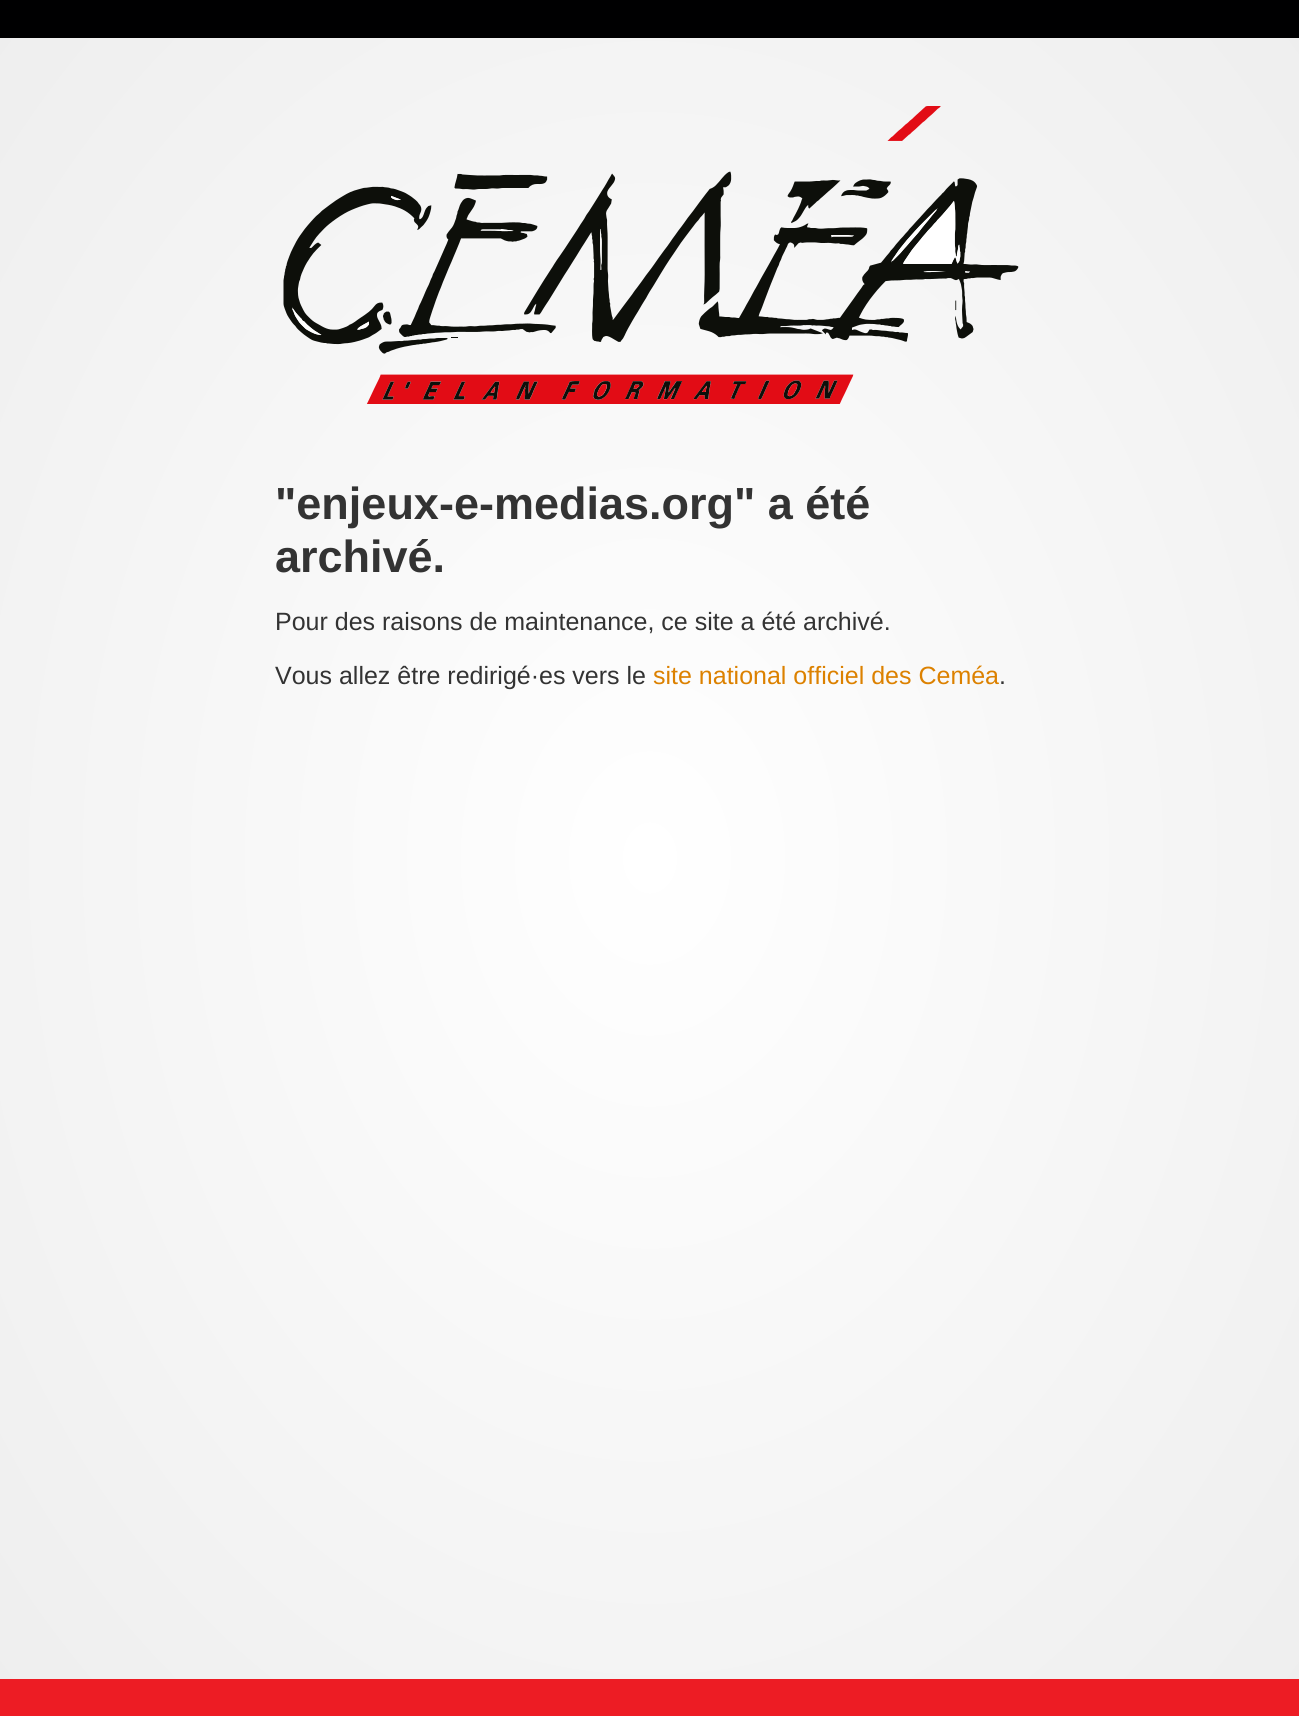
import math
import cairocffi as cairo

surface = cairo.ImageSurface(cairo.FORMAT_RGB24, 1299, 1716)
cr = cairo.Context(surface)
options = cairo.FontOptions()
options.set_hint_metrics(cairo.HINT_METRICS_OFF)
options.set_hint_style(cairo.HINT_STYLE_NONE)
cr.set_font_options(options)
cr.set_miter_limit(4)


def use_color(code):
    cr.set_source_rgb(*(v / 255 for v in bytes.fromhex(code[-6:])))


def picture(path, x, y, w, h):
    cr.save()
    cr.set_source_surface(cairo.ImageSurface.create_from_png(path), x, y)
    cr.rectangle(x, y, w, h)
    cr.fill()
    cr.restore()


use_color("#ffffff")
cr.paint()
gradient = cairo.RadialGradient(0, 0, 0, 0, 0, 1)
gradient.set_matrix(cairo.Matrix(1 / 919, 0, 0, 1 / 1214, -1 * 650 / 919, -1 * 858 / 1214))
gradient.add_color_stop_rgba(0, 1, 1, 1, 1)
gradient.add_color_stop_rgba(1, 0.933, 0.933, 0.933, 1)
cr.set_source(gradient)
cr.rectangle(0, 38, 1299, 1641)
cr.fill()
use_color("#000001")
cr.rectangle(0, 0, 1299, 38)
cr.fill()
picture("img1.png", 283, 106, 736, 298)
cr.select_font_face("Liberation Sans", cairo.FONT_SLANT_NORMAL, cairo.FONT_WEIGHT_BOLD)
cr.set_font_size(45)
use_color("#333333")
cr.move_to(275, 519)
cr.show_text("\"enjeux-e-medias.org\" a été")
cr.move_to(275, 572)
cr.show_text("archivé.")
cr.select_font_face("Liberation Sans")
cr.set_font_size(25)
cr.move_to(275, 630)
cr.show_text("Pour des raisons de maintenance, ce site a été archivé.")
cr.move_to(275, 684)
cr.show_text("Vous allez être redirigé·es vers le")
use_color("#dc8100")
cr.move_to(653, 684)
cr.show_text("site national officiel des Ceméa")
use_color("#333333")
cr.move_to(999, 684)
cr.show_text(".")
use_color("#ed1c24")
cr.rectangle(0, 1679, 1299, 37)
cr.fill()
surface.write_to_png("result.png")
